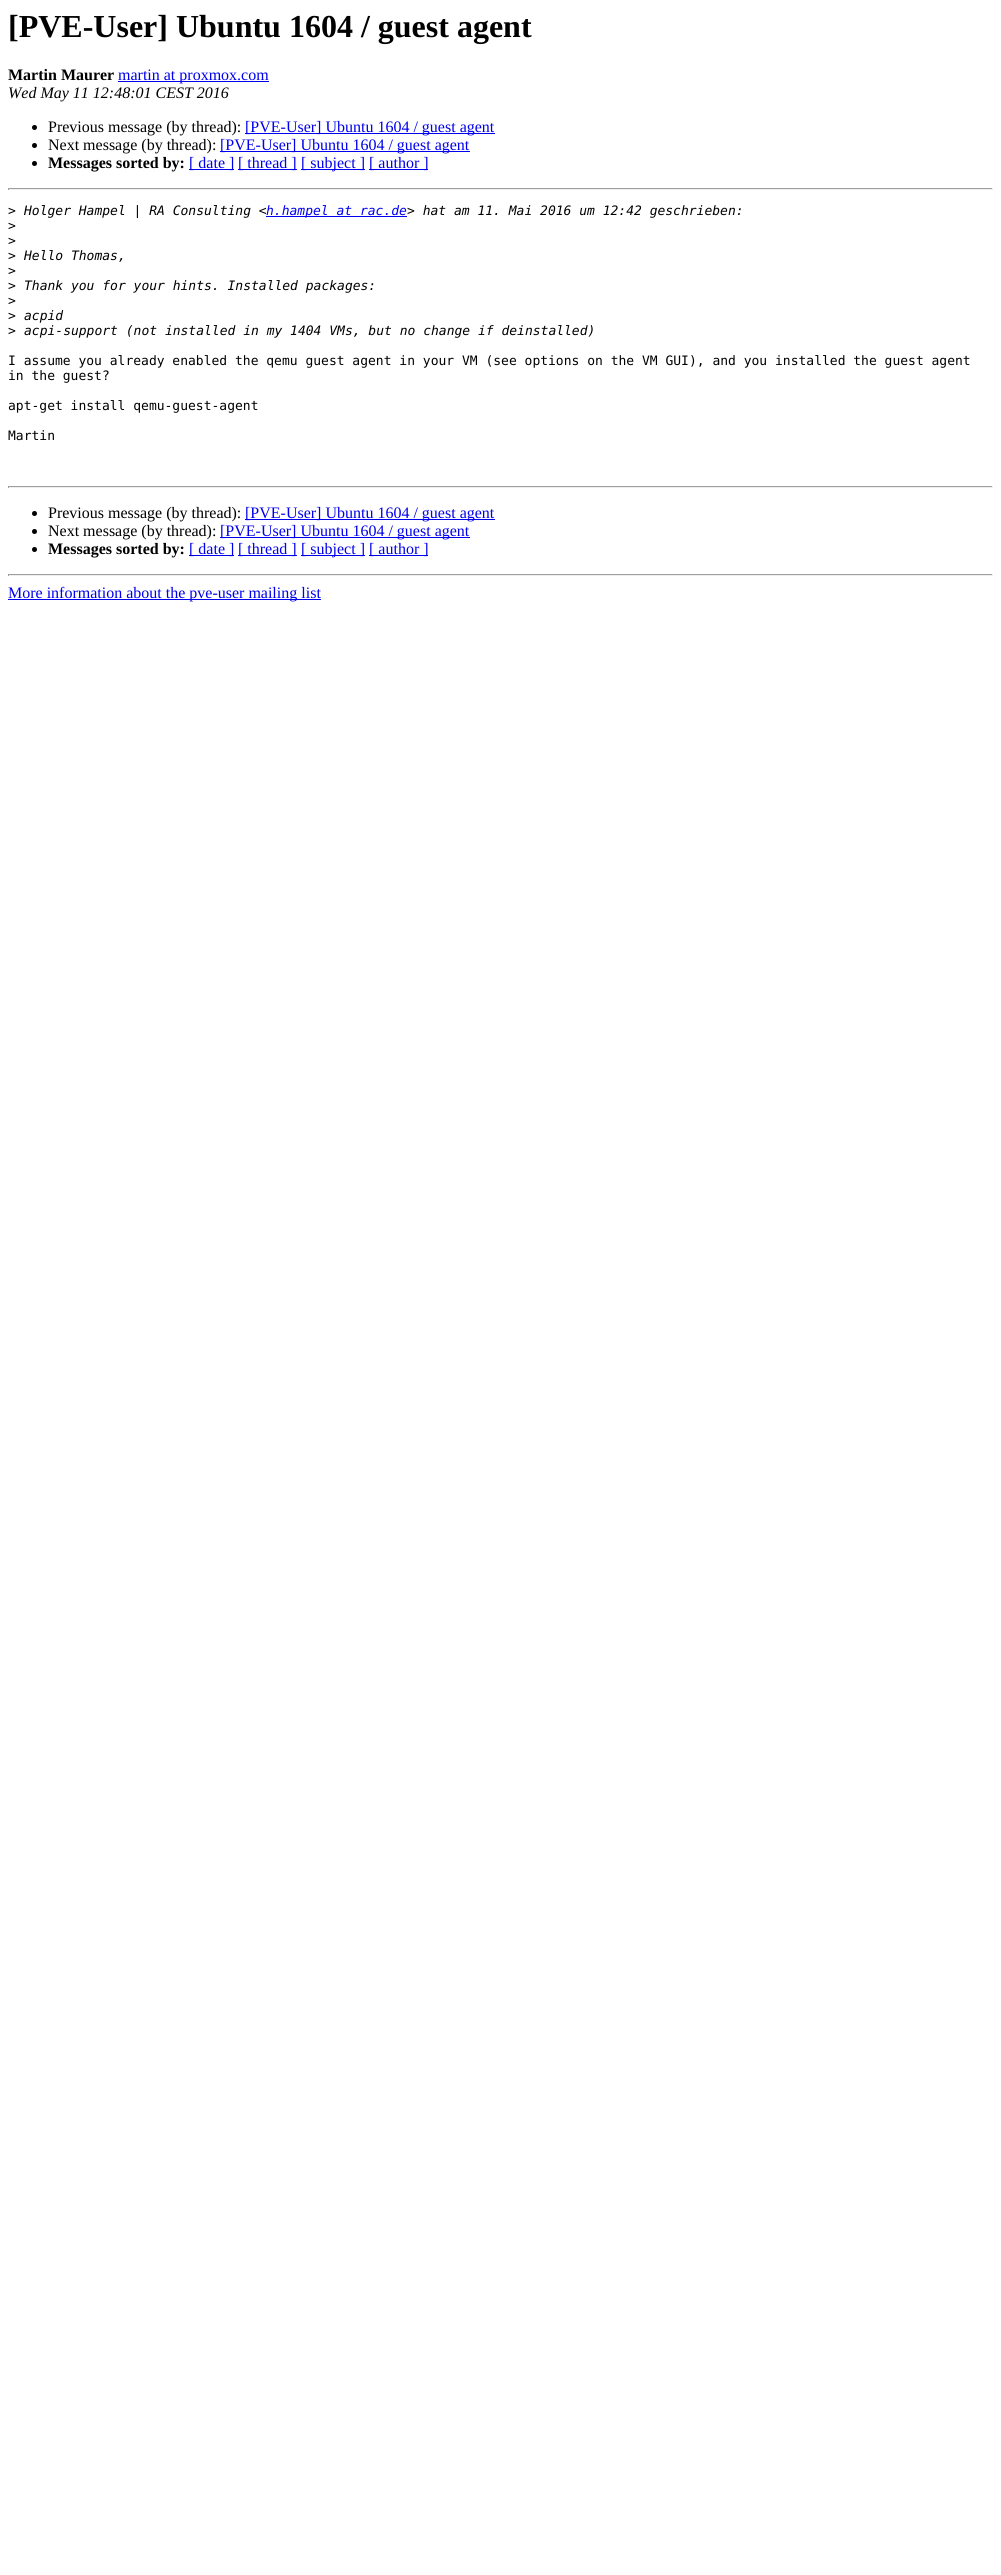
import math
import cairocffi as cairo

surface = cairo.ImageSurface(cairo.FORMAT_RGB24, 1001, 2575)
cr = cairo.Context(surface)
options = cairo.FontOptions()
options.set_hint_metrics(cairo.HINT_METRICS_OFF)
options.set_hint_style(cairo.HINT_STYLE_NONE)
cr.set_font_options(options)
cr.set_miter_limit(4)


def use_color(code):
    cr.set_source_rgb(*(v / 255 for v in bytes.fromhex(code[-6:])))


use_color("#ffffff")
cr.paint()
cr.select_font_face("Liberation Serif", cairo.FONT_SLANT_NORMAL, cairo.FONT_WEIGHT_BOLD)
cr.set_font_size(32)
use_color("#000000")
cr.move_to(8, 37)
cr.show_text("[PVE-User] Ubuntu 1604 / guest agent")
cr.set_font_size(16)
cr.move_to(8, 80)
cr.show_text("Martin Maurer")
use_color("#0000ee")
cr.rectangle(118, 81, 151, 1)
cr.fill()
cr.select_font_face("Liberation Serif")
cr.move_to(118, 80)
cr.show_text("martin at proxmox.com")
cr.select_font_face("Liberation Serif", cairo.FONT_SLANT_ITALIC)
use_color("#000000")
cr.move_to(8, 98)
cr.show_text("Wed May 11 12:48:01 CEST 2016")
cr.new_path()
cr.arc(34.5, 127.5, 2.5, 0, 2 * math.pi)
cr.fill()
cr.select_font_face("Liberation Serif")
cr.move_to(48, 132)
cr.show_text("Previous message (by thread):")
use_color("#0000ee")
cr.rectangle(245, 133, 250, 1)
cr.fill()
cr.move_to(245, 132)
cr.show_text("[PVE-User] Ubuntu 1604 / guest agent")
use_color("#000000")
cr.new_path()
cr.arc(34.5, 145.5, 2.5, 0, 2 * math.pi)
cr.fill()
cr.move_to(48, 150)
cr.show_text("Next message (by thread):")
use_color("#0000ee")
cr.rectangle(220, 151, 250, 1)
cr.fill()
cr.move_to(220, 150)
cr.show_text("[PVE-User] Ubuntu 1604 / guest agent")
use_color("#000000")
cr.new_path()
cr.arc(34.5, 163.5, 2.5, 0, 2 * math.pi)
cr.fill()
cr.select_font_face("Liberation Serif", cairo.FONT_SLANT_NORMAL, cairo.FONT_WEIGHT_BOLD)
cr.move_to(48, 168)
cr.show_text("Messages sorted by:")
use_color("#0000ee")
cr.rectangle(189, 169, 45, 1)
cr.fill()
cr.select_font_face("Liberation Serif")
cr.move_to(189, 168)
cr.show_text("[ date ]")
cr.rectangle(238, 169, 59, 1)
cr.fill()
cr.move_to(238, 168)
cr.show_text("[ thread ]")
cr.rectangle(301, 169, 64, 1)
cr.fill()
cr.move_to(301, 168)
cr.show_text("[ subject ]")
cr.rectangle(369, 169, 59, 1)
cr.fill()
cr.move_to(369, 168)
cr.show_text("[ author ]")
use_color("#9f9f9f")
cr.rectangle(8, 188, 985, 1)
cr.fill()
use_color("#eeeeee")
cr.rectangle(992, 188, 1, 2)
cr.fill()
cr.rectangle(8, 189, 985, 1)
cr.fill()
use_color("#9f9f9f")
cr.rectangle(8, 188, 1, 2)
cr.fill()
cr.select_font_face("DejaVu Sans Mono")
cr.set_font_size(13)
use_color("#000000")
cr.move_to(8, 215)
cr.show_text(">")
cr.select_font_face("DejaVu Sans Mono", cairo.FONT_SLANT_ITALIC)
cr.move_to(24, 215)
cr.show_text("Holger Hampel | RA Consulting <")
use_color("#0000ee")
cr.rectangle(266, 216, 141, 1)
cr.fill()
cr.move_to(266, 215)
cr.show_text("h.hampel at rac.de")
use_color("#000000")
cr.move_to(407, 215)
cr.show_text("> hat am 11. Mai 2016 um 12:42 geschrieben:")
cr.select_font_face("DejaVu Sans Mono")
cr.move_to(8, 230)
cr.show_text(">")
cr.move_to(8, 245)
cr.show_text(">")
cr.move_to(8, 260)
cr.show_text(">")
cr.select_font_face("DejaVu Sans Mono", cairo.FONT_SLANT_ITALIC)
cr.move_to(24, 260)
cr.show_text("Hello Thomas,")
cr.select_font_face("DejaVu Sans Mono")
cr.move_to(8, 275)
cr.show_text(">")
cr.move_to(8, 290)
cr.show_text(">")
cr.select_font_face("DejaVu Sans Mono", cairo.FONT_SLANT_ITALIC)
cr.move_to(24, 290)
cr.show_text("Thank you for your hints. Installed packages:")
cr.select_font_face("DejaVu Sans Mono")
cr.move_to(8, 305)
cr.show_text(">")
cr.move_to(8, 320)
cr.show_text(">")
cr.select_font_face("DejaVu Sans Mono", cairo.FONT_SLANT_ITALIC)
cr.move_to(24, 320)
cr.show_text("acpid")
cr.select_font_face("DejaVu Sans Mono")
cr.move_to(8, 335)
cr.show_text(">")
cr.select_font_face("DejaVu Sans Mono", cairo.FONT_SLANT_ITALIC)
cr.move_to(24, 335)
cr.show_text("acpi-support (not installed in my 1404 VMs, but no change if deinstalled)")
cr.select_font_face("DejaVu Sans Mono")
cr.move_to(8, 365)
cr.show_text("I assume you already enabled the qemu guest agent in your VM (see options on the VM GUI), and you installed the guest agent")
cr.move_to(8, 380)
cr.show_text("in the guest?")
cr.move_to(8, 410)
cr.show_text("apt-get install qemu-guest-agent")
cr.move_to(8, 440)
cr.show_text("Martin")
use_color("#9f9f9f")
cr.rectangle(8, 486, 985, 1)
cr.fill()
use_color("#eeeeee")
cr.rectangle(992, 486, 1, 2)
cr.fill()
cr.rectangle(8, 487, 985, 1)
cr.fill()
use_color("#9f9f9f")
cr.rectangle(8, 486, 1, 2)
cr.fill()
use_color("#000000")
cr.arc(34.5, 513.5, 2.5, 0, 2 * math.pi)
cr.fill()
cr.select_font_face("Liberation Serif")
cr.set_font_size(16)
cr.move_to(48, 518)
cr.show_text("Previous message (by thread):")
use_color("#0000ee")
cr.rectangle(245, 519, 250, 1)
cr.fill()
cr.move_to(245, 518)
cr.show_text("[PVE-User] Ubuntu 1604 / guest agent")
use_color("#000000")
cr.new_path()
cr.arc(34.5, 531.5, 2.5, 0, 2 * math.pi)
cr.fill()
cr.move_to(48, 536)
cr.show_text("Next message (by thread):")
use_color("#0000ee")
cr.rectangle(220, 537, 250, 1)
cr.fill()
cr.move_to(220, 536)
cr.show_text("[PVE-User] Ubuntu 1604 / guest agent")
use_color("#000000")
cr.new_path()
cr.arc(34.5, 549.5, 2.5, 0, 2 * math.pi)
cr.fill()
cr.select_font_face("Liberation Serif", cairo.FONT_SLANT_NORMAL, cairo.FONT_WEIGHT_BOLD)
cr.move_to(48, 554)
cr.show_text("Messages sorted by:")
use_color("#0000ee")
cr.rectangle(189, 555, 45, 1)
cr.fill()
cr.select_font_face("Liberation Serif")
cr.move_to(189, 554)
cr.show_text("[ date ]")
cr.rectangle(238, 555, 59, 1)
cr.fill()
cr.move_to(238, 554)
cr.show_text("[ thread ]")
cr.rectangle(301, 555, 64, 1)
cr.fill()
cr.move_to(301, 554)
cr.show_text("[ subject ]")
cr.rectangle(369, 555, 59, 1)
cr.fill()
cr.move_to(369, 554)
cr.show_text("[ author ]")
use_color("#9f9f9f")
cr.rectangle(8, 574, 985, 1)
cr.fill()
use_color("#eeeeee")
cr.rectangle(992, 574, 1, 2)
cr.fill()
cr.rectangle(8, 575, 985, 1)
cr.fill()
use_color("#9f9f9f")
cr.rectangle(8, 574, 1, 2)
cr.fill()
use_color("#0000ee")
cr.rectangle(8, 599, 313, 1)
cr.fill()
cr.move_to(8, 598)
cr.show_text("More information about the pve-user mailing list")
surface.write_to_png("result.png")
